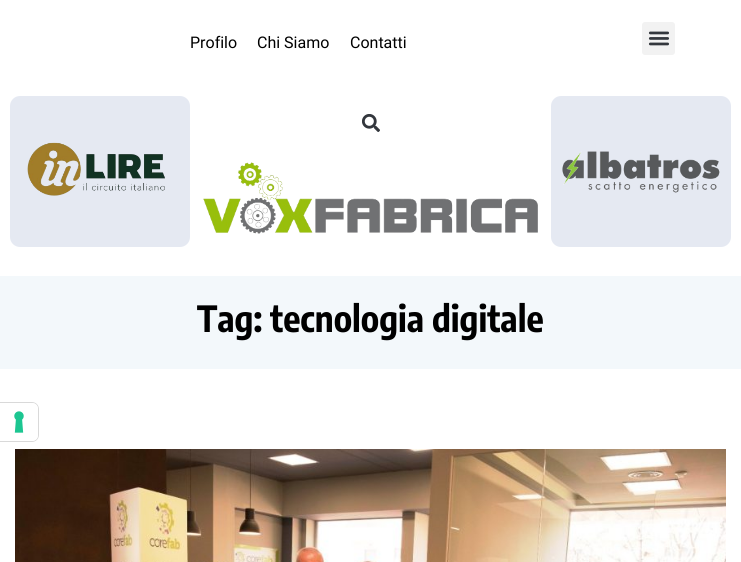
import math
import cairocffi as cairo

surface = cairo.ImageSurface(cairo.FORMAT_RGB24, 741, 562)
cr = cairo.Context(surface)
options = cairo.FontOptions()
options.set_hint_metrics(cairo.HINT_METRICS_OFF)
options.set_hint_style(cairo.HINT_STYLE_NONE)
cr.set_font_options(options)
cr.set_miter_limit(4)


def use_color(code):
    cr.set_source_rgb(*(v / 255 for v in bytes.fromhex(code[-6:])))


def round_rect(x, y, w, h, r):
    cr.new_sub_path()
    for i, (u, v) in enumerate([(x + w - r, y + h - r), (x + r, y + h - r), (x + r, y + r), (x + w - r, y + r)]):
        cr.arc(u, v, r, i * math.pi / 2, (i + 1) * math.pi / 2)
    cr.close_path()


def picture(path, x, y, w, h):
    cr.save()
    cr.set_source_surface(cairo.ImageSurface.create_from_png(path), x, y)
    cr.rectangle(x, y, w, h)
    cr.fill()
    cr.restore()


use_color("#ffffff")
cr.paint()
cr.select_font_face("Roboto")
cr.set_font_size(16)
use_color("#000000")
cr.move_to(190, 48)
cr.show_text("Profilo")
cr.move_to(257, 48)
cr.show_text("Chi Siamo")
cr.move_to(350, 48)
cr.show_text("Contatti")
use_color("#f2f2f2")
round_rect(642, 22, 33, 33, 3)
cr.fill()
picture("img1.png", 648, 31, 22, 15)
use_color("#e5e9f2")
round_rect(10, 96, 180, 151, 10)
cr.fill()
picture("img2.png", 27, 142, 138, 54)
picture("img3.png", 362, 114, 18, 18)
picture("img4.png", 203, 162, 335, 72)
round_rect(551, 96, 180, 151, 10)
cr.fill()
picture("img5.png", 562, 151, 158, 42)
use_color("#f3f8fb")
cr.rectangle(0, 276, 741, 93)
cr.fill()
cr.select_font_face("Encode Sans Condensed", cairo.FONT_SLANT_NORMAL, cairo.FONT_WEIGHT_BOLD)
cr.set_font_size(36)
use_color("#000000")
cr.move_to(197, 332)
cr.show_text("Tag: tecnologia digitale")
cr.new_path()
cr.move_to(-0.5, 402.5)
cr.line_to(32, 402.5)
cr.curve_to(35.5, 402.5, 38.5, 405.5, 38.5, 409)
cr.line_to(38.5, 435)
cr.curve_to(38.5, 438.5, 35.5, 441.5, 32, 441.5)
cr.line_to(-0.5, 441.5)
cr.close_path()
use_color("#d9d9d9")
cr.set_line_width(1)
cr.stroke()
use_color("#ffffff")
cr.new_path()
cr.move_to(0, 403)
cr.line_to(32, 403)
cr.curve_to(35.5, 403, 38, 405.5, 38, 409)
cr.line_to(38, 435)
cr.curve_to(38, 438.5, 35.5, 441, 32, 441)
cr.line_to(0, 441)
cr.close_path()
cr.fill()
picture("img6.png", 14, 411, 10, 22)
picture("img7.png", 15, 449, 711, 113)
surface.write_to_png("result.png")
